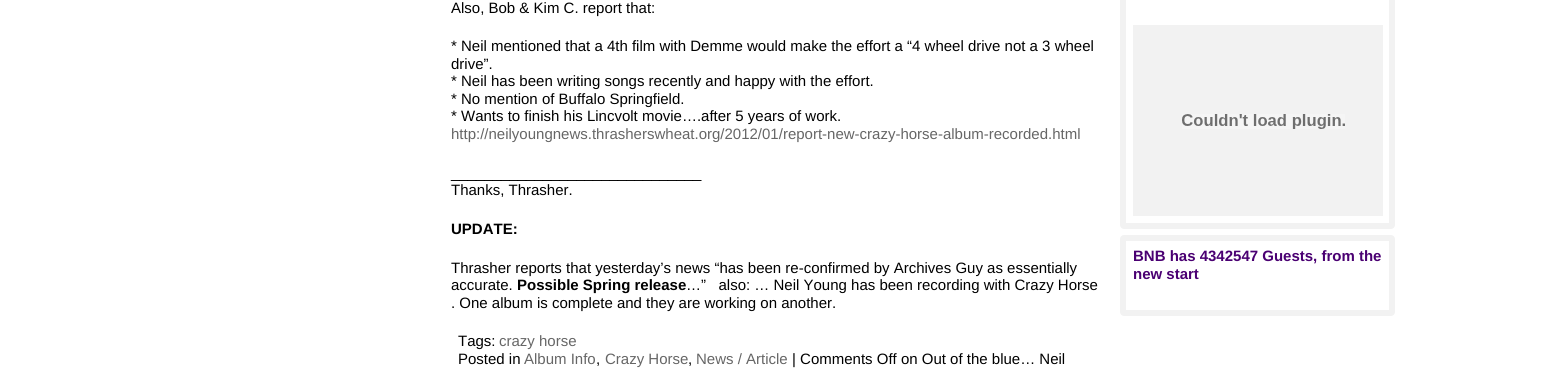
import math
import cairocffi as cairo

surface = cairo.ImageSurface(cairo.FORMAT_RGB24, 1552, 375)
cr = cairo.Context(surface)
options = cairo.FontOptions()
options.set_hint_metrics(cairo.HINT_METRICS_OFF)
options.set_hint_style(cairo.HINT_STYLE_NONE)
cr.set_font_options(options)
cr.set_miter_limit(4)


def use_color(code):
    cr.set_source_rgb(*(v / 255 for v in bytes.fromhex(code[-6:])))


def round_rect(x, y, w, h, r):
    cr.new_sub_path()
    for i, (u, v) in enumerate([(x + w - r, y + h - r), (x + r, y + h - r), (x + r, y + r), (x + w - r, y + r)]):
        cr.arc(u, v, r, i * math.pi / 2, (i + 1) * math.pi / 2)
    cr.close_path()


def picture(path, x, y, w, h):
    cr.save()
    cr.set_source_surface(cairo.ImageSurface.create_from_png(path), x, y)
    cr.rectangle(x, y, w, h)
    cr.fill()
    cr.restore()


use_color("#ffffff")
cr.paint()
cr.select_font_face("Liberation Sans")
cr.set_font_size(15)
use_color("#000000")
cr.move_to(451, 13)
cr.show_text("Also, Bob & Kim C. report that:")
cr.move_to(451, 51)
cr.show_text("* Neil mentioned that a 4th film with Demme would make the effort a “4 wheel drive not a 3 wheel")
cr.move_to(451, 69)
cr.show_text("drive”.")
cr.move_to(451, 86)
cr.show_text("* Neil has been writing songs recently and happy with the effort.")
cr.move_to(451, 104)
cr.show_text("* No mention of Buffalo Springfield.")
cr.move_to(451, 121)
cr.show_text("* Wants to finish his Lincvolt movie….after 5 years of work.")
use_color("#666666")
cr.move_to(451, 139)
cr.show_text("http://neilyoungnews.thrasherswheat.org/2012/01/report-new-crazy-horse-album-recorded.html")
use_color("#000000")
cr.move_to(451, 178)
cr.show_text("______________________________")
cr.move_to(451, 195)
cr.show_text("Thanks, Thrasher.")
cr.select_font_face("Liberation Sans", cairo.FONT_SLANT_NORMAL, cairo.FONT_WEIGHT_BOLD)
cr.move_to(451, 234)
cr.show_text("UPDATE:")
cr.select_font_face("Liberation Sans")
cr.move_to(451, 273)
cr.show_text("Thrasher reports that yesterday’s news “has been re-confirmed by Archives Guy as essentially")
cr.move_to(451, 290)
cr.show_text("accurate.")
cr.select_font_face("Liberation Sans", cairo.FONT_SLANT_NORMAL, cairo.FONT_WEIGHT_BOLD)
cr.move_to(517, 290)
cr.show_text("Possible Spring release")
cr.select_font_face("Liberation Sans")
cr.move_to(686, 290)
cr.show_text("…”   also: … Neil Young has been recording with Crazy Horse")
cr.move_to(451, 308)
cr.show_text(". One album is complete and they are working on another.")
cr.move_to(458, 346)
cr.show_text("Tags:")
use_color("#666666")
cr.move_to(499, 346)
cr.show_text("crazy horse")
use_color("#000000")
cr.move_to(458, 364)
cr.show_text("Posted in")
use_color("#666666")
cr.move_to(524, 364)
cr.show_text("Album Info")
use_color("#000000")
cr.move_to(596, 364)
cr.show_text(",")
use_color("#666666")
cr.move_to(605, 364)
cr.show_text("Crazy Horse")
use_color("#000000")
cr.move_to(688, 364)
cr.show_text(",")
use_color("#666666")
cr.move_to(696, 364)
cr.show_text("News / Article")
use_color("#000000")
cr.move_to(792, 364)
cr.show_text("| Comments Off on Out of the blue… Neil")
round_rect(1123, -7, 269, 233, 1)
use_color("#f2f2f2")
cr.set_line_width(6)
cr.stroke()
cr.rectangle(1133, 25, 250, 191)
cr.fill()
picture("img1.png", 1182, 114, 163, 15)
round_rect(1123, 238, 269, 75, 1)
cr.stroke()
cr.select_font_face("Liberation Sans", cairo.FONT_SLANT_NORMAL, cairo.FONT_WEIGHT_BOLD)
use_color("#4a0072")
cr.move_to(1133, 261)
cr.show_text("BNB has 4342547 Guests, from the")
cr.move_to(1133, 279)
cr.show_text("new start")
surface.write_to_png("result.png")
